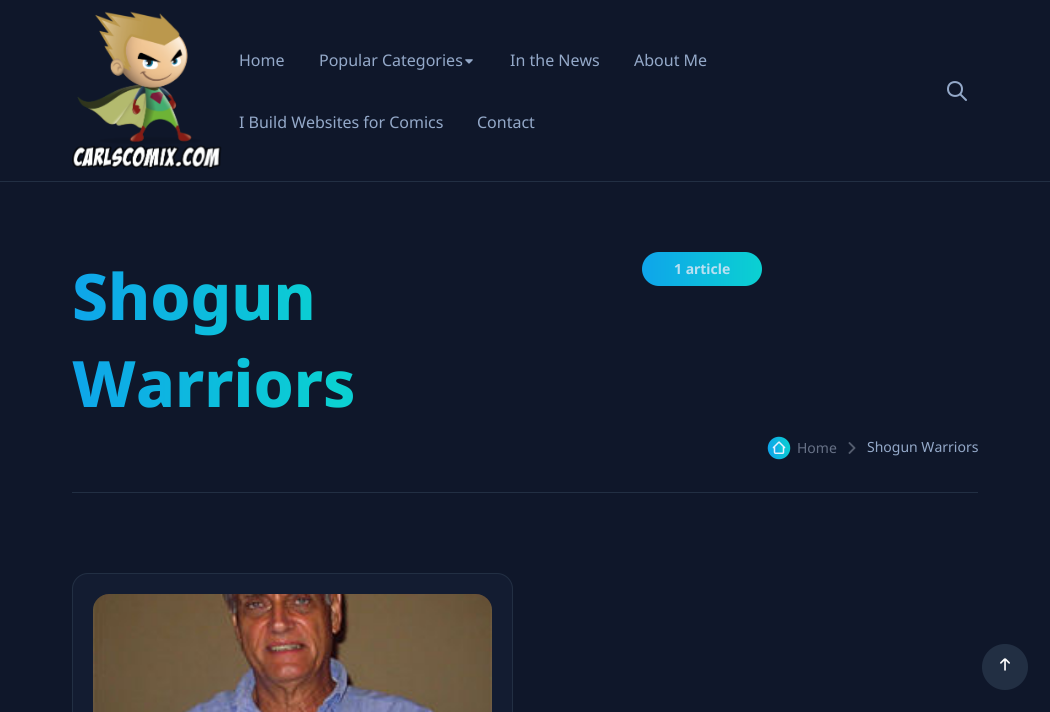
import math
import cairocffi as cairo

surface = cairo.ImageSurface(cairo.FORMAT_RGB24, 1050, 712)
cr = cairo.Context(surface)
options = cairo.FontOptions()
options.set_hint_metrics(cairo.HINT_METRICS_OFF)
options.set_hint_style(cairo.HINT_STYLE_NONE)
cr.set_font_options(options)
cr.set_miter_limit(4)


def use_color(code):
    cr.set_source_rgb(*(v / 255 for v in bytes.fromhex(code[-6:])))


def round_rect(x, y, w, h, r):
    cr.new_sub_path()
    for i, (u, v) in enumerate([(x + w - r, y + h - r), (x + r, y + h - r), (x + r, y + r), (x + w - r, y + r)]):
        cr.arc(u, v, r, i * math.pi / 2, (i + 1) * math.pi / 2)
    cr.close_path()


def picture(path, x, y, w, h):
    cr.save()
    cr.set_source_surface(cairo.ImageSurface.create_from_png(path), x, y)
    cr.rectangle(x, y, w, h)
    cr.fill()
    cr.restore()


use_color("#0f172a")
cr.paint()
use_color("#222f43")
cr.rectangle(0, 181, 1050, 1)
cr.fill()
picture("img1.png", 72, 11, 150, 158)
cr.select_font_face("Noto Sans")
cr.set_font_size(16)
use_color("#94a9c9")
cr.move_to(239, 66)
cr.show_text("Home")
cr.move_to(319, 66)
cr.show_text("Popular Categories")
picture("img2.png", 465, 59, 8, 5)
cr.move_to(510, 66)
cr.show_text("In the News")
cr.move_to(634, 66)
cr.show_text("About Me")
cr.move_to(239, 128)
cr.show_text("I Build Websites for Comics")
cr.move_to(477, 128)
cr.show_text("Contact")
cr.new_path()
cr.move_to(966, 100)
cr.line_to(960, 94)
cr.close_path()
cr.move_to(962, 89)
cr.curve_to(962, 98.5, 948, 98, 948, 89)
cr.curve_to(948, 79.5, 962, 80, 962, 89)
cr.close_path()
cr.set_line_cap(cairo.LINE_CAP_ROUND)
cr.set_line_join(cairo.LINE_JOIN_ROUND)
cr.stroke()
cr.save()
round_rect(642, 252, 120, 34, 17)
cr.clip()
gradient = cairo.LinearGradient(407, 269, 643, 269)
gradient.add_color_stop_rgba(0, 0.055, 0.647, 0.918, 1)
gradient.add_color_stop_rgba(0.51, 0.043, 0.82, 0.82, 1)
gradient.add_color_stop_rgba(1, 0.055, 0.647, 0.918, 1)
cr.set_source(gradient)
cr.rectangle(642, 263, 1, 12)
cr.fill()
gradient = cairo.LinearGradient(643, 269, 879, 269)
gradient.add_color_stop_rgba(0, 0.055, 0.647, 0.918, 1)
gradient.add_color_stop_rgba(0.51, 0.043, 0.82, 0.82, 1)
gradient.add_color_stop_rgba(1, 0.055, 0.647, 0.918, 1)
cr.set_source(gradient)
cr.new_path()
cr.move_to(643, 252)
cr.line_to(745, 252)
cr.curve_to(754.5, 252, 762, 259.5, 762, 269)
cr.curve_to(762, 278.5, 754.5, 286, 745, 286)
cr.line_to(643, 286)
cr.close_path()
cr.fill()
cr.restore()
cr.select_font_face("Noto Sans", cairo.FONT_SLANT_NORMAL, cairo.FONT_WEIGHT_BOLD)
cr.set_font_size(14)
use_color("#b9e0f2")
cr.move_to(674, 274)
cr.show_text("1 article")
cr.select_font_face("Noto Sans ExtraBold")
cr.set_font_size(64)
gradient = cairo.LinearGradient(72, 339, 591, 339)
gradient.add_color_stop_rgba(0, 0.055, 0.647, 0.918, 1)
gradient.add_color_stop_rgba(0.51, 0.043, 0.82, 0.82, 1)
gradient.add_color_stop_rgba(1, 0.055, 0.647, 0.918, 1)
cr.set_source(gradient)
cr.move_to(72, 320)
cr.show_text("Shogun")
cr.move_to(72, 407)
cr.show_text("Warriors")
picture("img3.png", 767, 436, 24, 24)
cr.select_font_face("Noto Sans")
cr.set_font_size(14)
use_color("#667085")
cr.move_to(797, 453)
cr.show_text("Home")
picture("img4.png", 848, 442, 8, 12)
use_color("#94a9c9")
cr.move_to(867, 452)
cr.show_text("Shogun Warriors")
use_color("#222f43")
cr.rectangle(72, 492, 906, 1)
cr.fill()
use_color("#131c31")
round_rect(72.5, 573.5, 440, 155, 15.5)
cr.fill_preserve()
use_color("#222f43")
cr.set_line_width(1)
cr.set_line_cap(cairo.LINE_CAP_BUTT)
cr.set_line_join(cairo.LINE_JOIN_MITER)
cr.stroke()
picture("img5.png", 93, 594, 399, 118)
cr.arc(1005, 667, 23, 0, 2 * math.pi)
cr.fill()
picture("img6.png", 1000, 658, 10, 13)
surface.write_to_png("result.png")
